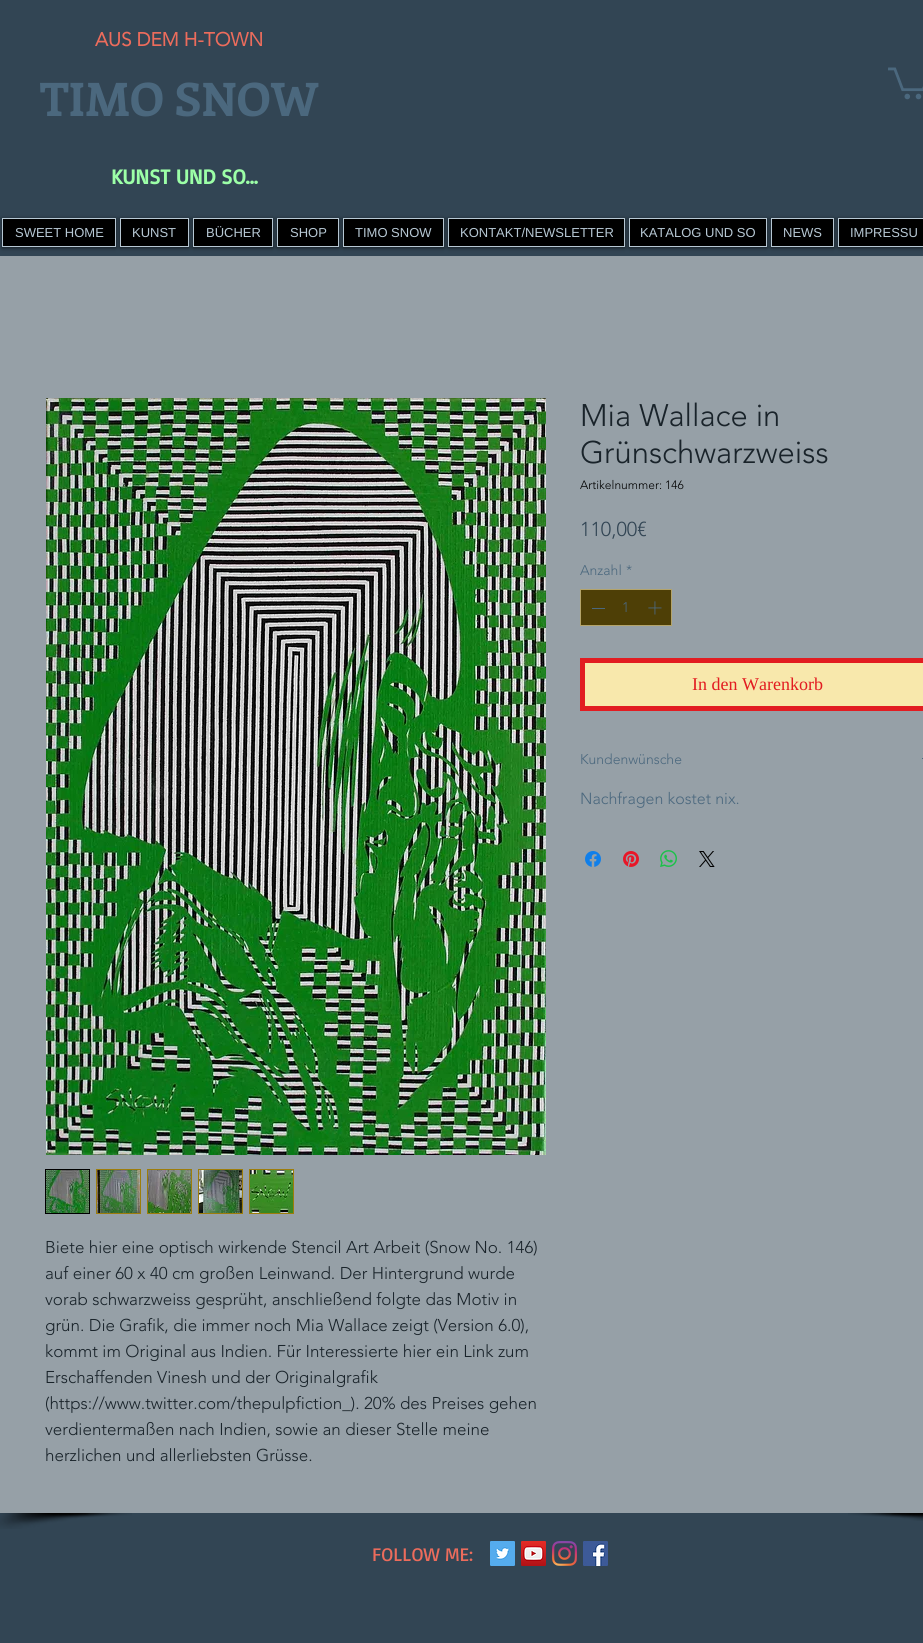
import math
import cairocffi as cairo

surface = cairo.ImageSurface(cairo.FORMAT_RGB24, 923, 1643)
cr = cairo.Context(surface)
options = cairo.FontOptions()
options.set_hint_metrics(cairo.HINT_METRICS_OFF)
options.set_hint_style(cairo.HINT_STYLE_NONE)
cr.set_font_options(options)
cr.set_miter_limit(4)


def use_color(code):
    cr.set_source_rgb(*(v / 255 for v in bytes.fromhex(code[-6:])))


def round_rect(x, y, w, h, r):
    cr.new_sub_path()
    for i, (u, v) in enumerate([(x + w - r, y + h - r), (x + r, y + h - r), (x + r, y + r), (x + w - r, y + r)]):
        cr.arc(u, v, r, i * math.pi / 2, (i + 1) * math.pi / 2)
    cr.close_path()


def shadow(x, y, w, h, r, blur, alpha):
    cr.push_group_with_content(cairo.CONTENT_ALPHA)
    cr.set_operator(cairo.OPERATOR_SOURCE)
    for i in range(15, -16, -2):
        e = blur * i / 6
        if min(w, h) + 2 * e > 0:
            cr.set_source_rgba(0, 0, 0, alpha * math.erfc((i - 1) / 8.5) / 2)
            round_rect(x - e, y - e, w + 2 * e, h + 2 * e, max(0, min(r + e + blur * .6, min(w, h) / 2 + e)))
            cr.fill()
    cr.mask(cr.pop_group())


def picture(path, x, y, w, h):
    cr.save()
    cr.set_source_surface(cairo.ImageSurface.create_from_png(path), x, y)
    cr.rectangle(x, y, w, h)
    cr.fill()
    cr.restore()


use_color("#324554")
cr.paint()
cr.select_font_face("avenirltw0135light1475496", cairo.FONT_SLANT_NORMAL, cairo.FONT_WEIGHT_BOLD)
cr.set_font_size(19)
use_color("#ed6c5c")
cr.move_to(95, 46)
cr.show_text("AUS DEM H-TOWN")
cr.select_font_face("Enriqueta", cairo.FONT_SLANT_NORMAL, cairo.FONT_WEIGHT_BOLD)
cr.set_font_size(46)
use_color("#4b687e")
cr.move_to(40, 116)
cr.show_text("TIMO SNOW")
picture("img1.png", 888, 67, 35, 33)
cr.select_font_face("Basic", cairo.FONT_SLANT_NORMAL, cairo.FONT_WEIGHT_BOLD)
cr.set_font_size(21)
use_color("#9cffa7")
cr.move_to(111, 184)
cr.show_text("KUNST UND SO...")
use_color("#000000")
shadow(2, 219, 114, 29, 0, 2, 0.6)
use_color("#000000")
cr.rectangle(2.5, 218.5, 113, 28)
cr.fill_preserve()
use_color("#b7c8d4")
cr.set_line_width(1)
cr.stroke()
cr.select_font_face("Liberation Sans")
cr.set_font_size(13)
cr.move_to(15, 237)
cr.show_text("SWEET HOME")
use_color("#000000")
shadow(120, 219, 69, 29, 0, 2, 0.6)
use_color("#000000")
cr.rectangle(120.5, 218.5, 68, 28)
cr.fill_preserve()
use_color("#b7c8d4")
cr.stroke()
cr.move_to(132, 237)
cr.show_text("KUNST")
use_color("#000000")
shadow(193, 219, 80, 29, 0, 2, 0.6)
use_color("#000000")
cr.rectangle(193.5, 218.5, 79, 28)
cr.fill_preserve()
use_color("#b7c8d4")
cr.stroke()
cr.move_to(206, 237)
cr.show_text("BÜCHER")
use_color("#000000")
shadow(277, 219, 62, 29, 0, 2, 0.6)
use_color("#000000")
cr.rectangle(277.5, 218.5, 61, 28)
cr.fill_preserve()
use_color("#b7c8d4")
cr.stroke()
cr.move_to(290, 237)
cr.show_text("SHOP")
use_color("#000000")
shadow(343, 219, 101, 29, 0, 2, 0.6)
use_color("#000000")
cr.rectangle(343.5, 218.5, 100, 28)
cr.fill_preserve()
use_color("#b7c8d4")
cr.stroke()
cr.move_to(355, 237)
cr.show_text("TIMO SNOW")
use_color("#000000")
shadow(448, 219, 177, 29, 0, 2, 0.6)
use_color("#000000")
cr.rectangle(448.5, 218.5, 176, 28)
cr.fill_preserve()
use_color("#b7c8d4")
cr.stroke()
cr.move_to(460, 237)
cr.show_text("KONTAKT/NEWSLETTER")
use_color("#000000")
shadow(629, 219, 138, 29, 0, 2, 0.6)
use_color("#000000")
cr.rectangle(629.5, 218.5, 137, 28)
cr.fill_preserve()
use_color("#b7c8d4")
cr.stroke()
cr.move_to(640, 237)
cr.show_text("KATALOG UND SO")
use_color("#000000")
shadow(771, 219, 63, 29, 0, 2, 0.6)
use_color("#000000")
cr.rectangle(771.5, 218.5, 62, 28)
cr.fill_preserve()
use_color("#b7c8d4")
cr.stroke()
cr.move_to(783, 237)
cr.show_text("NEWS")
use_color("#000000")
shadow(838, 219, 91, 29, 0, 2, 0.6)
use_color("#000000")
cr.rectangle(838.5, 218.5, 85, 28)
cr.fill_preserve()
use_color("#b7c8d4")
cr.stroke()
cr.move_to(850, 237)
cr.show_text("IMPRESSU")
use_color("#96a0a7")
cr.rectangle(0, 256, 923, 1257)
cr.fill()
picture("img2.png", 0, 1513, 132, 16)
picture("img3.png", 848, 1513, 75, 8)
cr.select_font_face("avenirltw0135light1475496 Light")
cr.set_font_size(31)
use_color("#19232a")
cr.move_to(580, 426)
cr.show_text("Mia Wallace in")
cr.move_to(580, 463)
cr.show_text("Grünschwarzweiss")
cr.set_font_size(12)
use_color("#000000")
cr.move_to(580, 489)
cr.show_text("Artikelnummer: 146")
cr.set_font_size(20)
use_color("#324554")
cr.move_to(580, 536)
cr.show_text("110,00€")
cr.set_font_size(14)
use_color("#4b687e")
cr.move_to(580, 575)
cr.show_text("Anzahl")
cr.move_to(626, 575)
cr.show_text("*")
use_color("#4e3f06")
cr.rectangle(580.5, 589.5, 91, 36)
cr.fill_preserve()
use_color("#b4a46a")
cr.stroke()
use_color("#4b687e")
cr.rectangle(592, 608, 13, 1)
cr.fill()
cr.move_to(622, 612)
cr.show_text("1")
picture("img4.png", 648, 601, 14, 14)
use_color("#f8e8ac")
cr.rectangle(582.5, 660.5, 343, 48)
cr.fill_preserve()
use_color("#e21c21")
cr.set_line_width(5)
cr.stroke()
cr.select_font_face("Liberation Serif")
cr.set_font_size(18)
cr.move_to(692, 690)
cr.show_text("In den Warenkorb")
cr.select_font_face("avenirltw0135light1475496 Light")
cr.set_font_size(14)
use_color("#4b687e")
cr.move_to(580, 764)
cr.show_text("Kundenwünsche")
cr.rectangle(922, 758, 1, 1)
cr.fill()
cr.set_font_size(16)
cr.move_to(580, 804)
cr.show_text("Nachfragen kostet nix.")
picture("img5.png", 585, 851, 16, 16)
picture("img6.png", 623, 851, 16, 16)
picture("img7.png", 660, 850, 17, 17)
picture("img8.png", 699, 851, 16, 16)
picture("img9.png", 46, 398, 500, 757)
cr.rectangle(45.5, 1169.5, 44, 44)
use_color("#000000")
cr.set_line_width(1)
cr.stroke()
picture("img10.png", 46, 1170, 43, 43)
use_color("#9d7d0b")
cr.rectangle(96, 1169, 45, 45)
cr.fill()
picture("img11.png", 97, 1170, 43, 43)
cr.rectangle(147, 1169, 45, 45)
cr.fill()
picture("img12.png", 148, 1170, 43, 43)
cr.rectangle(198, 1169, 45, 45)
cr.fill()
picture("img13.png", 199, 1170, 43, 43)
cr.rectangle(249, 1169, 45, 45)
cr.fill()
picture("img14.png", 250, 1170, 43, 43)
cr.set_font_size(17)
use_color("#19232a")
cr.move_to(45, 1253)
cr.show_text("Biete hier eine optisch wirkende Stencil Art Arbeit (Snow No. 146)")
cr.move_to(45, 1279)
cr.show_text("auf einer 60 x 40 cm großen Leinwand. Der Hintergrund wurde")
cr.move_to(45, 1305)
cr.show_text("vorab schwarzweiss gesprüht, anschließend folgte das Motiv in")
cr.move_to(45, 1331)
cr.show_text("grün. Die Grafik, die immer noch Mia Wallace zeigt (Version 6.0),")
cr.move_to(45, 1357)
cr.show_text("kommt im Original aus Indien. Für Interessierte hier ein Link zum")
cr.move_to(45, 1383)
cr.show_text("Erschaffenden Vinesh und der Originalgrafik")
cr.move_to(45, 1409)
cr.show_text("(https://www.twitter.com/thepulpfiction_). 20% des Preises gehen")
cr.move_to(45, 1435)
cr.show_text("verdientermaßen nach Indien, sowie an dieser Stelle meine")
cr.move_to(45, 1461)
cr.show_text("herzlichen und allerliebsten Grüsse.")
cr.select_font_face("Basic")
cr.set_font_size(19)
use_color("#ed6c5c")
cr.move_to(372, 1561)
cr.show_text("FOLLOW ME:")
picture("img15.png", 490, 1541, 25, 25)
picture("img16.png", 521, 1541, 25, 25)
picture("img17.png", 552, 1541, 25, 25)
picture("img18.png", 583, 1541, 25, 25)
surface.write_to_png("result.png")
